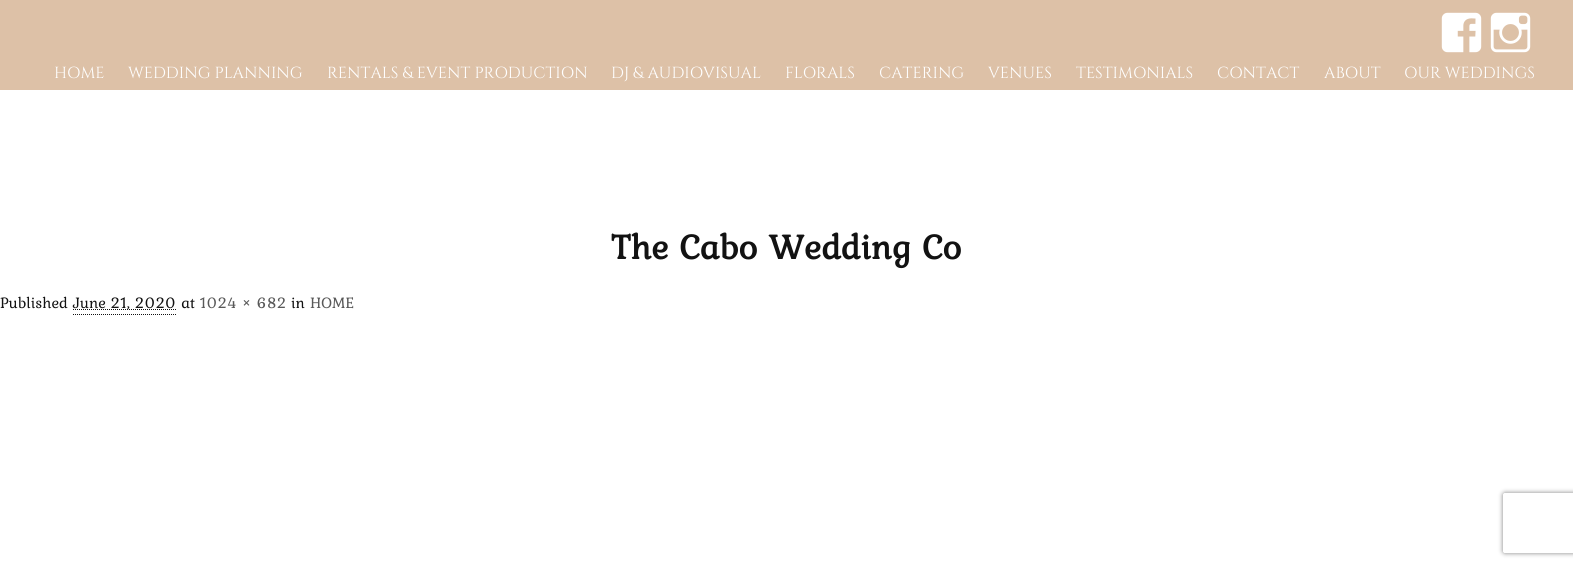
import math
import cairocffi as cairo

surface = cairo.ImageSurface(cairo.FORMAT_RGB24, 1573, 567)
cr = cairo.Context(surface)
options = cairo.FontOptions()
options.set_hint_metrics(cairo.HINT_METRICS_OFF)
options.set_hint_style(cairo.HINT_STYLE_NONE)
cr.set_font_options(options)
cr.set_miter_limit(4)


def use_color(code):
    cr.set_source_rgb(*(v / 255 for v in bytes.fromhex(code[-6:])))


def round_rect(x, y, w, h, r):
    cr.new_sub_path()
    for i, (u, v) in enumerate([(x + w - r, y + h - r), (x + r, y + h - r), (x + r, y + r), (x + w - r, y + r)]):
        cr.arc(u, v, r, i * math.pi / 2, (i + 1) * math.pi / 2)
    cr.close_path()


def shadow(x, y, w, h, r, blur, alpha):
    cr.push_group_with_content(cairo.CONTENT_ALPHA)
    cr.set_operator(cairo.OPERATOR_SOURCE)
    for i in range(15, -16, -2):
        e = blur * i / 6
        if min(w, h) + 2 * e > 0:
            cr.set_source_rgba(0, 0, 0, alpha * math.erfc((i - 1) / 8.5) / 2)
            round_rect(x - e, y - e, w + 2 * e, h + 2 * e, max(0, min(r + e + blur * .6, min(w, h) / 2 + e)))
            cr.fill()
    cr.mask(cr.pop_group())


def picture(path, x, y, w, h):
    cr.save()
    cr.set_source_surface(cairo.ImageSurface.create_from_png(path), x, y)
    cr.rectangle(x, y, w, h)
    cr.fill()
    cr.restore()


use_color("#ffffff")
cr.paint()
use_color("#ddc1a7")
cr.rectangle(0, 0, 1573, 90)
cr.fill()
picture("img1.png", 1441, 12, 41, 41)
picture("img2.png", 1490, 12, 41, 41)
cr.select_font_face("Cinzel")
cr.set_font_size(16)
use_color("#ffffff")
cr.move_to(54, 78)
cr.show_text("HOME")
cr.move_to(128, 78)
cr.show_text("WEDDING PLANNING")
cr.move_to(327, 78)
cr.show_text("RENTALS & EVENT PRODUCTION")
cr.move_to(611, 78)
cr.show_text("DJ & AUDIOVISUAL")
cr.move_to(785, 78)
cr.show_text("FLORALS")
cr.move_to(879, 78)
cr.show_text("CATERING")
cr.move_to(988, 78)
cr.show_text("VENUES")
cr.move_to(1076, 78)
cr.show_text("TESTIMONIALS")
cr.move_to(1217, 78)
cr.show_text("CONTACT")
cr.move_to(1324, 78)
cr.show_text("ABOUT")
cr.move_to(1404, 78)
cr.show_text("OUR WEDDINGS")
cr.select_font_face("Kurale", cairo.FONT_SLANT_NORMAL, cairo.FONT_WEIGHT_BOLD)
cr.set_font_size(36)
use_color("#121212")
cr.move_to(611, 259)
cr.show_text("The Cabo Wedding Co")
cr.select_font_face("Kurale")
cr.set_font_size(16)
cr.move_to(0, 308)
cr.show_text("Published")
cr.new_path()
cr.move_to(73, 309.5)
cr.line_to(176, 309.5)
cr.set_line_width(1)
cr.set_dash([1, 1])
cr.stroke()
cr.move_to(73, 308)
cr.show_text("June 21, 2020 at")
cr.new_path()
cr.move_to(73, 314.5)
cr.line_to(176, 314.5)
cr.stroke()
use_color("#595959")
cr.move_to(200, 308)
cr.show_text("1024 × 682")
use_color("#121212")
cr.move_to(291, 308)
cr.show_text("in")
use_color("#595959")
cr.move_to(310, 308)
cr.show_text("HOME")
cr.save()
cr.set_fill_rule(cairo.FILL_RULE_EVEN_ODD)
cr.new_path()
cr.move_to(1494, 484)
cr.line_to(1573, 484)
cr.line_to(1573, 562)
cr.line_to(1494, 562)
cr.close_path()
cr.move_to(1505, 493)
cr.line_to(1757, 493)
cr.curve_to(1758, 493, 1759, 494, 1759, 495)
cr.line_to(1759, 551)
cr.curve_to(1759, 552, 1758, 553, 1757, 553)
cr.line_to(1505, 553)
cr.curve_to(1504, 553, 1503, 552, 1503, 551)
cr.line_to(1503, 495)
cr.curve_to(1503, 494, 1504, 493, 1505, 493)
cr.close_path()
cr.clip()
use_color("#808080")
shadow(1503, 493, 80, 60, 2, 2.5, 1)
cr.restore()
surface.write_to_png("result.png")
